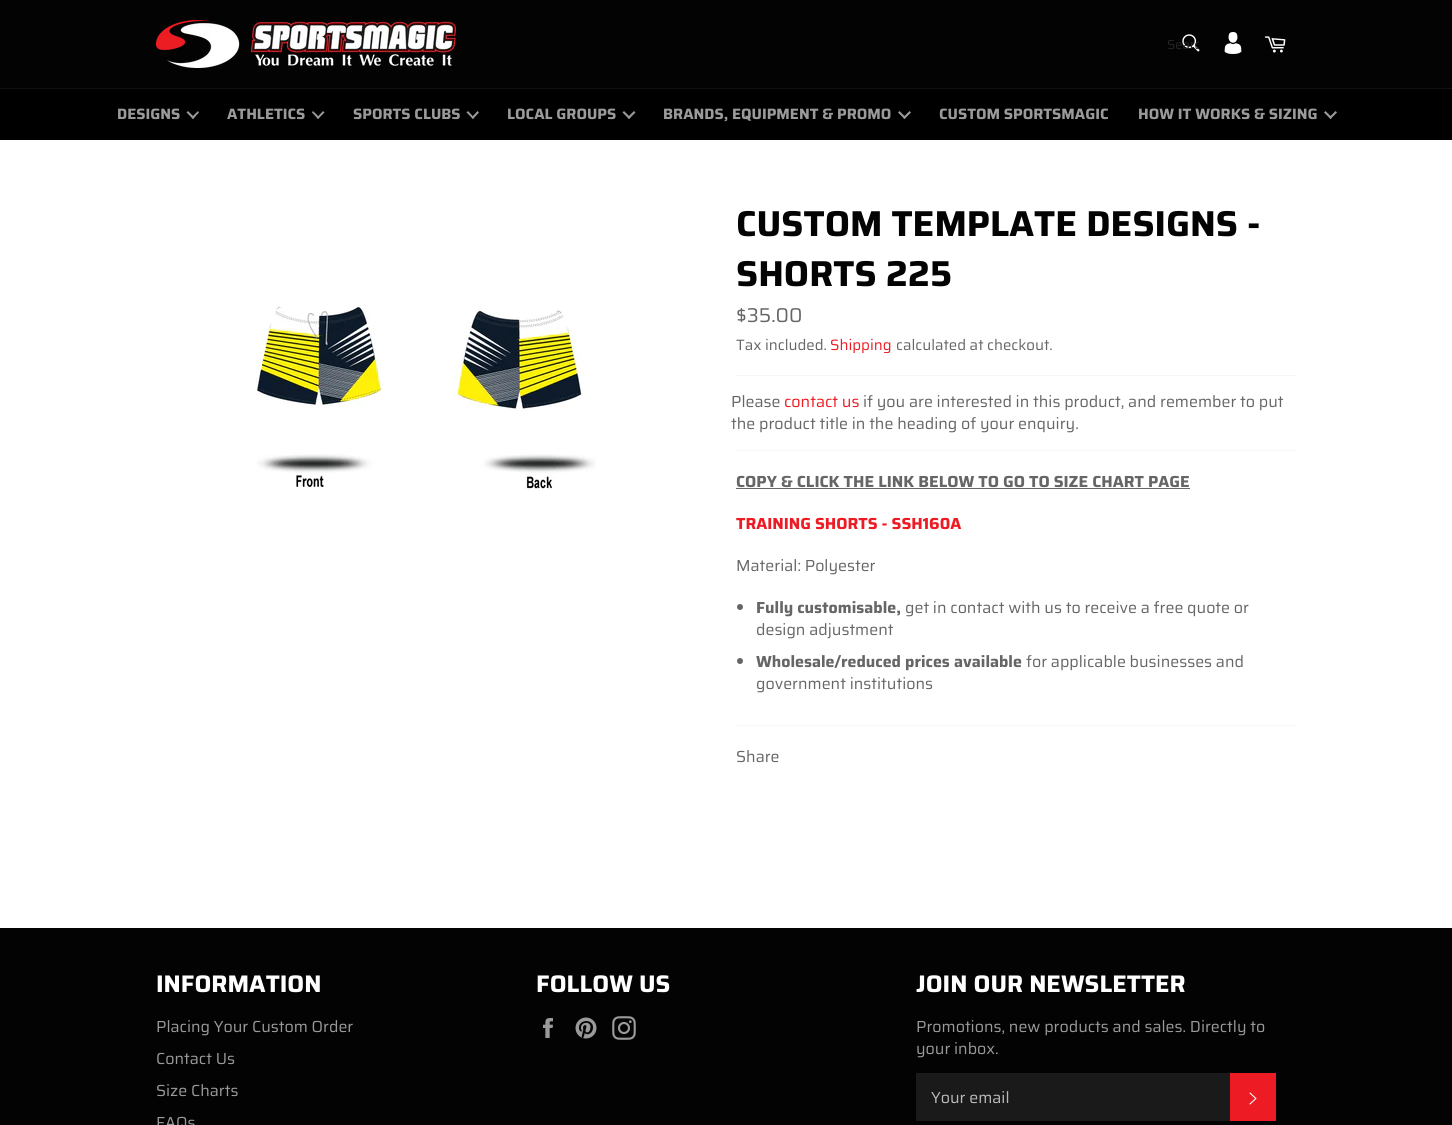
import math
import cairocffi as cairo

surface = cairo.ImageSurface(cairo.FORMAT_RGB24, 1452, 1125)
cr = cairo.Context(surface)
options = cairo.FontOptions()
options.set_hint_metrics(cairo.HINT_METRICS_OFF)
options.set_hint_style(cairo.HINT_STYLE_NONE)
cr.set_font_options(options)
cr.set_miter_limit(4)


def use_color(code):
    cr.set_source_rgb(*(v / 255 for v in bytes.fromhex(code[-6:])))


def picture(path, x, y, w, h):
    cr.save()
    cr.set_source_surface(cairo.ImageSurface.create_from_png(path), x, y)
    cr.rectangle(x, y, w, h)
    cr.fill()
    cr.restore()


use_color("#030303")
cr.paint()
picture("img1.png", 156, 20, 300, 48)
picture("img2.png", 1182, 34, 18, 18)
cr.save()
cr.rectangle(1167, 34, 32, 21)
cr.clip()
cr.select_font_face("Saira")
cr.set_font_size(13)
use_color("#252525")
cr.move_to(1167, 49)
cr.show_text("Searc")
cr.restore()
picture("img3.png", 1224, 32, 18, 22)
picture("img4.png", 1264, 36, 22, 17)
use_color("#101010")
cr.rectangle(0, 88, 1452, 1)
cr.fill()
use_color("#000000")
cr.rectangle(0, 89, 1452, 51)
cr.fill()
cr.select_font_face("Saira", cairo.FONT_SLANT_NORMAL, cairo.FONT_WEIGHT_BOLD)
cr.set_font_size(15)
use_color("#9a9a9a")
cr.move_to(117, 119)
cr.show_text("DESIGNS")
cr.new_path()
cr.move_to(193, 119)
cr.line_to(186.5, 112.5)
cr.line_to(188, 111)
cr.line_to(194.5, 117.5)
cr.close_path()
cr.fill()
cr.new_path()
cr.move_to(193, 119)
cr.line_to(191.5, 117.5)
cr.line_to(198, 111)
cr.line_to(199, 112.5)
cr.close_path()
cr.fill()
cr.move_to(227, 119)
cr.show_text("ATHLETICS")
cr.new_path()
cr.move_to(318, 119)
cr.line_to(312, 112.5)
cr.line_to(313, 111)
cr.line_to(319.5, 117.5)
cr.close_path()
cr.fill()
cr.new_path()
cr.move_to(318, 119)
cr.line_to(317, 117.5)
cr.line_to(323, 111)
cr.line_to(324.5, 112.5)
cr.close_path()
cr.fill()
cr.move_to(353, 119)
cr.show_text("SPORTS CLUBS")
cr.new_path()
cr.move_to(473, 119)
cr.line_to(466.5, 112.5)
cr.line_to(468, 111)
cr.line_to(474, 117.5)
cr.close_path()
cr.fill()
cr.new_path()
cr.move_to(473, 119)
cr.line_to(471.5, 117.5)
cr.line_to(477.5, 111)
cr.line_to(479, 112.5)
cr.close_path()
cr.fill()
cr.move_to(507, 119)
cr.show_text("LOCAL GROUPS")
cr.new_path()
cr.move_to(629, 119)
cr.line_to(622.5, 112.5)
cr.line_to(624, 111)
cr.line_to(630.5, 117.5)
cr.close_path()
cr.fill()
cr.new_path()
cr.move_to(629, 119)
cr.line_to(627.5, 117.5)
cr.line_to(634, 111)
cr.line_to(635.5, 112.5)
cr.close_path()
cr.fill()
cr.move_to(663, 119)
cr.show_text("BRANDS, EQUIPMENT & PROMO")
cr.new_path()
cr.move_to(904.5, 119)
cr.line_to(898, 112.5)
cr.line_to(899.5, 111)
cr.line_to(906, 117.5)
cr.close_path()
cr.fill()
cr.new_path()
cr.move_to(904.5, 119)
cr.line_to(903, 117.5)
cr.line_to(909.5, 111)
cr.line_to(911, 112.5)
cr.close_path()
cr.fill()
cr.move_to(939, 119)
cr.show_text("CUSTOM SPORTSMAGIC")
cr.move_to(1138, 119)
cr.show_text("HOW IT WORKS & SIZING")
cr.new_path()
cr.move_to(1330.5, 119)
cr.line_to(1324, 112.5)
cr.line_to(1325.5, 111)
cr.line_to(1332, 117.5)
cr.close_path()
cr.fill()
cr.new_path()
cr.move_to(1330.5, 119)
cr.line_to(1329, 117.5)
cr.line_to(1335.5, 111)
cr.line_to(1337, 112.5)
cr.close_path()
cr.fill()
use_color("#ffffff")
cr.rectangle(0, 140, 1452, 788)
cr.fill()
picture("img5.png", 256, 307, 340, 184)
cr.set_font_size(36)
use_color("#030303")
cr.move_to(736, 236)
cr.show_text("CUSTOM TEMPLATE DESIGNS -")
cr.move_to(736, 286)
cr.show_text("SHORTS 225")
cr.select_font_face("Saira")
cr.set_font_size(20)
use_color("#666666")
cr.move_to(736, 322)
cr.show_text("$35.00")
cr.set_font_size(15)
cr.move_to(736, 350)
cr.show_text("Tax included.")
use_color("#ed1c24")
cr.move_to(830, 350)
cr.show_text("Shipping")
use_color("#666666")
cr.move_to(896, 350)
cr.show_text("calculated at checkout.")
use_color("#f7f7f7")
cr.rectangle(736, 375, 560, 1)
cr.fill()
cr.set_font_size(16)
use_color("#666666")
cr.move_to(731, 407)
cr.show_text("Please")
use_color("#ed1c24")
cr.move_to(784, 407)
cr.show_text("contact us")
use_color("#666666")
cr.move_to(863, 407)
cr.show_text("if you are interested in this product, and remember to put")
cr.move_to(731, 429)
cr.show_text("the product title in the heading of your enquiry.")
use_color("#f7f7f7")
cr.rectangle(736, 450, 560, 1)
cr.fill()
cr.select_font_face("Saira", cairo.FONT_SLANT_NORMAL, cairo.FONT_WEIGHT_BOLD)
use_color("#666666")
cr.move_to(736, 487)
cr.show_text("COPY & CLICK THE LINK BELOW TO GO TO SIZE CHART PAGE")
cr.rectangle(736, 488, 454, 1)
cr.fill()
use_color("#ed1c24")
cr.move_to(736, 529)
cr.show_text("TRAINING SHORTS - SSH160A")
cr.select_font_face("Saira")
use_color("#666666")
cr.move_to(736, 571)
cr.show_text("Material: Polyester")
cr.new_path()
cr.arc(740, 607, 3, 0, 2 * math.pi)
cr.fill()
cr.select_font_face("Saira", cairo.FONT_SLANT_NORMAL, cairo.FONT_WEIGHT_BOLD)
cr.move_to(756, 613)
cr.show_text("Fully customisable,")
cr.select_font_face("Saira")
cr.move_to(905, 613)
cr.show_text("get in contact with us to receive a free quote or")
cr.move_to(756, 635)
cr.show_text("design adjustment")
cr.new_path()
cr.arc(740, 661, 3, 0, 2 * math.pi)
cr.fill()
cr.select_font_face("Saira", cairo.FONT_SLANT_NORMAL, cairo.FONT_WEIGHT_BOLD)
cr.move_to(756, 667)
cr.show_text("Wholesale/reduced prices available")
cr.select_font_face("Saira")
cr.move_to(1026, 667)
cr.show_text("for applicable businesses and")
cr.move_to(756, 689)
cr.show_text("government institutions")
use_color("#f7f7f7")
cr.rectangle(736, 725, 560, 1)
cr.fill()
use_color("#666666")
cr.move_to(736, 762)
cr.show_text("Share")
cr.select_font_face("Saira", cairo.FONT_SLANT_NORMAL, cairo.FONT_WEIGHT_BOLD)
cr.set_font_size(24)
use_color("#ffffff")
cr.move_to(156, 992)
cr.show_text("INFORMATION")
cr.select_font_face("Saira")
cr.set_font_size(16)
use_color("#9a9a9a")
cr.move_to(156, 1032)
cr.show_text("Placing Your Custom Order")
cr.move_to(156, 1064)
cr.show_text("Contact Us")
cr.move_to(156, 1096)
cr.show_text("Size Charts")
cr.move_to(156, 1128)
cr.show_text("FAQs")
cr.select_font_face("Saira", cairo.FONT_SLANT_NORMAL, cairo.FONT_WEIGHT_BOLD)
cr.set_font_size(24)
use_color("#ffffff")
cr.move_to(536, 992)
cr.show_text("FOLLOW US")
picture("img6.png", 543, 1018, 10, 20)
picture("img7.png", 575, 1017, 22, 22)
picture("img8.png", 612, 1016, 24, 24)
cr.move_to(916, 992)
cr.show_text("JOIN OUR NEWSLETTER")
cr.select_font_face("Saira")
cr.set_font_size(16)
use_color("#9a9a9a")
cr.move_to(916, 1032)
cr.show_text("Promotions, new products and sales. Directly to")
cr.move_to(916, 1054)
cr.show_text("your inbox.")
use_color("#1a1a1a")
cr.rectangle(916, 1073, 314, 48)
cr.fill()
use_color("#bababa")
cr.move_to(931, 1103)
cr.show_text("Your email")
use_color("#ed1c24")
cr.rectangle(1230, 1073, 46, 48)
cr.fill()
picture("img9.png", 1249, 1092, 8, 13)
surface.write_to_png("result.png")
